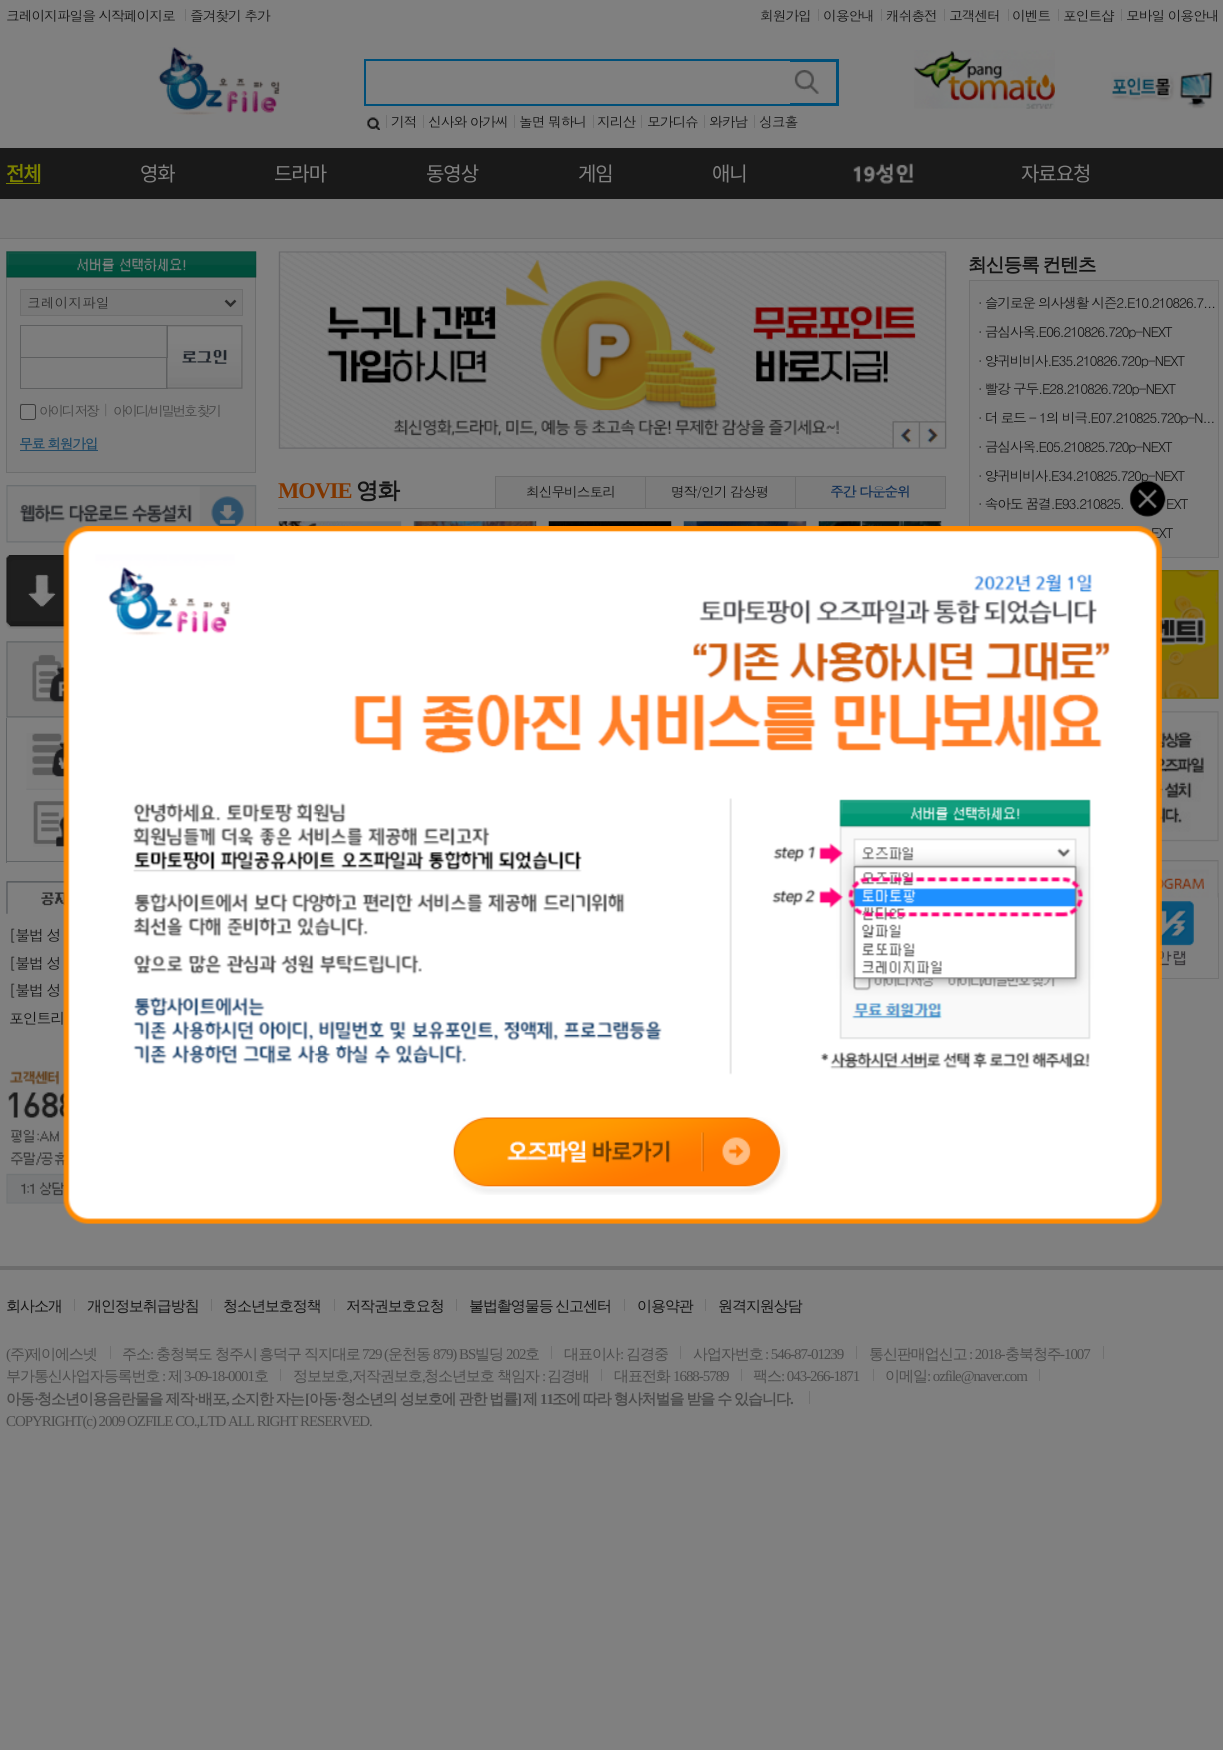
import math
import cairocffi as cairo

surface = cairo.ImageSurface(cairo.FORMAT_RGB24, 1223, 1750)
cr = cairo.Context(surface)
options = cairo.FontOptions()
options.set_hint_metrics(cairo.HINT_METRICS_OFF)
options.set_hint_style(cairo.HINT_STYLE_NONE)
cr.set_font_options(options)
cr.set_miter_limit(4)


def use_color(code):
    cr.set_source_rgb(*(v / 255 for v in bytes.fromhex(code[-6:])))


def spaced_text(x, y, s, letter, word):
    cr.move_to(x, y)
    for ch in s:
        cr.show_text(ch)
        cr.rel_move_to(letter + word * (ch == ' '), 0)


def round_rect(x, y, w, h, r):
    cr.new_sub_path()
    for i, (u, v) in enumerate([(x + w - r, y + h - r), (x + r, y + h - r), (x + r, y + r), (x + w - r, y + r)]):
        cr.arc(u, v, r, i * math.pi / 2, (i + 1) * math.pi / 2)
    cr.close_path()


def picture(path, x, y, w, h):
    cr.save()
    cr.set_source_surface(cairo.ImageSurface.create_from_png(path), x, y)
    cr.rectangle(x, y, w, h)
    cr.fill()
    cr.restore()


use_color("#808080")
cr.paint()
cr.select_font_face("Dotum")
cr.set_font_size(13.75)
use_color("#141414")
spaced_text(6, 21, "크레이지파일을 시작페이지로", -1.05, 0)
use_color("#6f6f6f")
cr.rectangle(185, 9, 1, 12)
cr.fill()
use_color("#141414")
spaced_text(190, 21, "즐겨찾기 추가", -1.05, 0)
spaced_text(760, 21, "회원가입", -1.05, 0)
use_color("#6f6f6f")
cr.rectangle(818, 9, 1, 12)
cr.fill()
use_color("#141414")
spaced_text(823, 21, "이용안내", -1.05, 0)
use_color("#6f6f6f")
cr.rectangle(881, 9, 1, 12)
cr.fill()
use_color("#141414")
spaced_text(886, 21, "캐쉬충전", -1.05, 0)
use_color("#6f6f6f")
cr.rectangle(944, 9, 1, 12)
cr.fill()
use_color("#141414")
spaced_text(949, 21, "고객센터", -1.05, 0)
use_color("#6f6f6f")
cr.rectangle(1008, 9, 1, 12)
cr.fill()
use_color("#141414")
spaced_text(1012, 21, "이벤트", -1.05, 0)
use_color("#6f6f6f")
cr.rectangle(1058, 9, 1, 12)
cr.fill()
use_color("#141414")
spaced_text(1063, 21, "포인트샵", -1.05, 0)
use_color("#6f6f6f")
cr.rectangle(1121, 9, 1, 12)
cr.fill()
use_color("#141414")
spaced_text(1126, 21, "모바일 이용안내", -1.05, 0)
picture("img1.png", 158, 47, 122, 68)
picture("img2.png", 913, 50, 142, 59)
picture("img3.png", 1111, 72, 102, 37)
cr.rectangle(365.5, 60.5, 472, 44)
use_color("#004f78")
cr.set_line_width(3)
cr.stroke()
use_color("#808080")
cr.rectangle(366, 61, 424, 43)
cr.fill()
picture("img4.png", 794, 70, 25, 24)
picture("img5.png", 367, 117, 13, 13)
use_color("#6f6f6f")
cr.rectangle(386, 115, 1, 13)
cr.fill()
use_color("#141414")
spaced_text(391, 127, "기적", -1.05, 0)
use_color("#6f6f6f")
cr.rectangle(423, 115, 1, 13)
cr.fill()
use_color("#141414")
spaced_text(428, 127, "신사와 아가씨", -1.05, 0)
use_color("#6f6f6f")
cr.rectangle(514, 115, 1, 13)
cr.fill()
use_color("#141414")
spaced_text(519, 127, "놀면 뭐하니", -1.05, 0)
use_color("#6f6f6f")
cr.rectangle(593, 115, 1, 13)
cr.fill()
use_color("#141414")
spaced_text(597, 127, "지리산", -1.05, 0)
use_color("#6f6f6f")
cr.rectangle(641, 115, 1, 13)
cr.fill()
use_color("#141414")
spaced_text(647, 127, "모가디슈", -1.05, 0)
use_color("#6f6f6f")
cr.rectangle(704, 115, 1, 13)
cr.fill()
use_color("#141414")
spaced_text(709, 127, "와카남", -1.05, 0)
use_color("#6f6f6f")
cr.rectangle(754, 115, 1, 13)
cr.fill()
use_color("#141414")
spaced_text(759, 127, "싱크홀", -1.05, 0)
use_color("#191919")
cr.rectangle(0, 148, 1223, 51)
cr.fill()
cr.select_font_face("Noto Sans KR", cairo.FONT_SLANT_NORMAL, cairo.FONT_WEIGHT_BOLD)
cr.set_font_size(20)
use_color("#7b8000")
spaced_text(6, 181, "전체", -1.05, 0)
cr.rectangle(6, 183, 34, 1)
cr.fill()
cr.select_font_face("Noto Sans KR Thin")
use_color("#808080")
spaced_text(140, 181, "영화", -1.05, 0)
spaced_text(274, 181, "드라마", -1.05, 0)
spaced_text(426, 181, "동영상", -1.05, 0)
spaced_text(578, 181, "게임", -1.05, 0)
spaced_text(712, 181, "애니", -1.05, 0)
picture("img6.png", 853, 163, 61, 21)
spaced_text(1021, 181, "자료요청", -1.05, 0)
use_color("#7b7b7b")
cr.rectangle(0, 199, 1223, 39)
cr.fill()
use_color("#6f6f6f")
cr.rectangle(0, 238, 1223, 1)
cr.fill()
use_color("#7d7d7d")
cr.rectangle(7, 277, 248, 195)
cr.fill()
cr.rectangle(6.5, 251.5, 249, 221)
use_color("#6c6d6d")
cr.set_line_width(1)
cr.stroke()
picture("img7.png", 6, 251, 251, 27)
use_color("#787878")
cr.rectangle(20.5, 289.5, 222, 26)
cr.fill_preserve()
use_color("#6d6d6d")
cr.stroke()
cr.new_path()
cr.move_to(225.5, 300.5)
cr.line_to(230.5, 305.5)
cr.line_to(235.5, 300.5)
use_color("#2b2b2b")
cr.set_line_width(2.5)
cr.stroke()
cr.select_font_face("Dotum")
cr.set_font_size(13.75)
cr.move_to(27, 308)
cr.show_text("크레이지파일")
picture("img8.png", 166, 325, 77, 64)
cr.set_source_rgba(0.471, 0.471, 0.471, 0.3)
cr.rectangle(166, 326, 1, 31)
cr.fill()
cr.rectangle(20.5, 325.5, 147, 32)
use_color("#5d5e5f")
cr.set_line_width(1)
cr.stroke()
cr.rectangle(166, 358, 1, 31)
cr.fill()
cr.rectangle(20, 388, 148, 1)
cr.fill()
cr.rectangle(20, 358, 1, 31)
cr.fill()
picture("img9.png", 20, 400, 3, 7)
use_color("#808080")
round_rect(20.5, 404.5, 15, 15, 2)
cr.fill_preserve()
use_color("#3b3b3b")
cr.stroke()
use_color("#434343")
spaced_text(39, 416, "아이디 저장", -2.5, 0)
picture("img10.png", 105, 400, 2, 17)
spaced_text(113, 416, "아이디/비밀번호 찾기", -2.5, 0)
cr.select_font_face("Dotum", cairo.FONT_SLANT_NORMAL, cairo.FONT_WEIGHT_BOLD)
use_color("#224a66")
spaced_text(19, 449, "무료 회원가입", -1.25, 0)
cr.rectangle(20, 450, 78, 1)
cr.fill()
picture("img11.png", 6, 485, 251, 58)
picture("img12.png", 6, 555, 59, 74)
picture("img13.png", 6, 641, 59, 77)
use_color("#5f6264")
cr.rectangle(6, 861, 59, 1)
cr.fill()
cr.rectangle(6, 718, 1, 145)
cr.fill()
picture("img14.png", 26, 733, 39, 57)
picture("img15.png", 33, 801, 32, 46)
picture("img16.png", 6, 881, 59, 33)
cr.select_font_face("Dotum")
cr.set_font_size(15)
use_color("#141414")
spaced_text(9, 941, "[불법 성", -1.25, 0)
spaced_text(9, 969, "[불법 성", -1.25, 0)
spaced_text(9, 996, "[불법 성", -1.25, 0)
spaced_text(9, 1024, "포인트리", -1.25, 0)
picture("img17.png", 8, 1071, 57, 95)
picture("img18.png", 6, 1173, 60, 31)
picture("img19.png", 278, 251, 669, 198)
use_color("#7d7d7d")
cr.rectangle(969.5, 280.5, 249, 277)
cr.fill_preserve()
use_color("#6f6f6f")
cr.stroke()
cr.set_font_size(13.75)
use_color("#141414")
spaced_text(1151, 538, "EXT", -1.25, 0)
picture("img28.png", 1160, 570, 59, 129)
picture("img29.png", 1160, 711, 59, 131)
picture("img30.png", 1160, 860, 59, 38)
use_color("#717171")
cr.rectangle(1218, 893, 1, 86)
cr.fill()
cr.rectangle(1160, 978, 59, 1)
cr.fill()
picture("img31.png", 1160, 901, 34, 65)
picture("img20.png", 63, 526, 1099, 698)
use_color("#141414")
spaced_text(978, 481, "· 양귀비비사.E34.210825.720p-NEXT", -1.25, 0)
picture("img21.png", 1129, 480, 37, 37)
picture("img22.png", 453, 1117, 335, 78)
use_color("#6c6c6c")
cr.rectangle(795, 476, 151, 1)
cr.fill()
cr.rectangle(795, 476, 1, 33)
cr.fill()
cr.rectangle(645, 476, 151, 1)
cr.fill()
cr.rectangle(645, 476, 1, 33)
cr.fill()
cr.rectangle(495, 476, 151, 1)
cr.fill()
cr.rectangle(495, 476, 1, 33)
cr.fill()
cr.rectangle(945, 476, 1, 33)
cr.fill()
cr.rectangle(278, 508, 668, 1)
cr.fill()
cr.select_font_face("Liberation Serif", cairo.FONT_SLANT_NORMAL, cairo.FONT_WEIGHT_BOLD)
cr.set_font_size(22.5)
use_color("#803600")
spaced_text(278, 498, "MOVIE", -1.05, 0)
cr.select_font_face("WenQuanYi Zen Hei", cairo.FONT_SLANT_NORMAL, cairo.FONT_WEIGHT_BOLD)
use_color("#141414")
spaced_text(356, 498, "영화", -1.05, 0)
use_color("#7b7b7b")
cr.rectangle(496, 477, 149, 31)
cr.fill()
cr.select_font_face("Dotum")
cr.set_font_size(13.75)
use_color("#141414")
spaced_text(526, 497, "최신무비스토리", -1.05, 0)
use_color("#7b7b7b")
cr.rectangle(646, 477, 149, 31)
cr.fill()
use_color("#141414")
spaced_text(671, 497, "명작/인기 감상평", -1.05, 0)
use_color("#7b7b7b")
cr.rectangle(796, 477, 149, 31)
cr.fill()
cr.select_font_face("Dotum", cairo.FONT_SLANT_NORMAL, cairo.FONT_WEIGHT_BOLD)
use_color("#153257")
spaced_text(830, 497, "주간 다운순위", -1.05, 0)
picture("img23.png", 278, 521, 124, 5)
picture("img24.png", 413, 521, 124, 5)
picture("img25.png", 548, 521, 124, 5)
picture("img26.png", 683, 521, 124, 5)
picture("img27.png", 818, 521, 124, 5)
cr.select_font_face("WenQuanYi Zen Hei", cairo.FONT_SLANT_NORMAL, cairo.FONT_WEIGHT_BOLD)
cr.set_font_size(18.75)
use_color("#141414")
spaced_text(968, 271, "최신등록 컨텐츠", -1.05, -1)
cr.select_font_face("Dotum")
cr.set_font_size(13.75)
spaced_text(978, 308, "· 슬기로운 의사생활 시즌2.E10.210826.7...", -1.25, 0)
spaced_text(978, 337, "· 금심사옥.E06.210826.720p-NEXT", -1.25, 0)
spaced_text(978, 366, "· 양귀비비사.E35.210826.720p-NEXT", -1.25, 0)
spaced_text(978, 394, "· 빨강 구두.E28.210826.720p-NEXT", -1.25, 0)
spaced_text(978, 423, "· 더 로드 - 1의 비극.E07.210825.720p-N...", -1.25, 0)
spaced_text(978, 452, "· 금심사옥.E05.210825.720p-NEXT", -1.25, 0)
spaced_text(978, 509, "· 속아도 꿈결.E93.210825.", -1.25, 0)
spaced_text(1166, 509, "EXT", -1.25, 0)
use_color("#6c6c6c")
cr.rectangle(0, 1266, 1223, 4)
cr.fill()
cr.select_font_face("WenQuanYi Zen Hei Medium")
cr.set_font_size(15)
use_color("#141414")
spaced_text(6, 1311, "회사소개", -1.05, 0)
use_color("#6f6f6f")
cr.rectangle(74, 1299, 1, 12)
cr.fill()
use_color("#141414")
spaced_text(87, 1311, "개인정보취급방침", -1.05, 0)
use_color("#6f6f6f")
cr.rectangle(211, 1299, 1, 12)
cr.fill()
use_color("#141414")
spaced_text(223, 1311, "청소년보호정책", -1.05, 0)
use_color("#6f6f6f")
cr.rectangle(334, 1299, 1, 12)
cr.fill()
use_color("#141414")
spaced_text(346, 1311, "저작권보호요청", -1.05, 0)
use_color("#6f6f6f")
cr.rectangle(456, 1299, 1, 12)
cr.fill()
use_color("#141414")
spaced_text(469, 1311, "불법촬영물등 신고센터", -1.05, -1)
use_color("#6f6f6f")
cr.rectangle(624, 1299, 1, 12)
cr.fill()
use_color("#141414")
spaced_text(637, 1311, "이용약관", -1.05, 0)
use_color("#6f6f6f")
cr.rectangle(705, 1299, 1, 12)
cr.fill()
use_color("#141414")
spaced_text(718, 1311, "원격지원상담", -1.05, 0)
cr.select_font_face("Liberation Serif")
use_color("#4b4b4b")
spaced_text(6, 1359, "(", -1.05, 0)
cr.select_font_face("WenQuanYi Zen Hei Medium")
spaced_text(10, 1359, "주", -1.05, 0)
cr.select_font_face("Liberation Serif")
spaced_text(24, 1359, ")", -1.05, 0)
cr.select_font_face("WenQuanYi Zen Hei Medium")
spaced_text(27, 1359, "제이에스넷", -1.05, 0)
use_color("#6f6f6f")
cr.rectangle(110, 1346, 1, 13)
cr.fill()
use_color("#4b4b4b")
spaced_text(122, 1359, "주소", -1.05, 0)
cr.select_font_face("Liberation Serif")
spaced_text(150, 1359, ":", -1.05, 0)
cr.select_font_face("WenQuanYi Zen Hei Medium")
spaced_text(156, 1359, "충청북도", -1.05, 0)
spaced_text(215, 1359, "청주시", -1.05, 0)
spaced_text(259, 1359, "흥덕구", -1.05, 0)
spaced_text(304, 1359, "직지대로", -1.05, 0)
cr.select_font_face("Liberation Serif")
spaced_text(362, 1359, "729 (", -1.05, 0)
cr.select_font_face("WenQuanYi Zen Hei Medium")
spaced_text(388, 1359, "운천동", -1.05, 0)
cr.select_font_face("Liberation Serif")
spaced_text(433, 1359, "879) BS", -1.05, 0)
cr.select_font_face("WenQuanYi Zen Hei Medium")
spaced_text(475, 1359, "빌딩", -1.05, 0)
cr.select_font_face("Liberation Serif")
spaced_text(506, 1359, "202", -1.05, 0)
cr.select_font_face("WenQuanYi Zen Hei Medium")
spaced_text(525, 1359, "호", -1.05, 0)
use_color("#6f6f6f")
cr.rectangle(551, 1346, 1, 13)
cr.fill()
use_color("#4b4b4b")
spaced_text(564, 1359, "대표이사", -1.05, 0)
cr.select_font_face("Liberation Serif")
spaced_text(620, 1359, ":", -1.05, 0)
cr.select_font_face("WenQuanYi Zen Hei Medium")
spaced_text(626, 1359, "김경중", -1.05, 0)
use_color("#6f6f6f")
cr.rectangle(680, 1346, 1, 13)
cr.fill()
use_color("#4b4b4b")
spaced_text(693, 1359, "사업자번호", -1.05, 0)
cr.select_font_face("Liberation Serif")
spaced_text(765, 1359, ": 546-87-01239", -1.05, 0)
use_color("#6f6f6f")
cr.rectangle(856, 1346, 1, 13)
cr.fill()
cr.select_font_face("WenQuanYi Zen Hei Medium")
use_color("#4b4b4b")
spaced_text(869, 1359, "통신판매업신고", -1.05, 0)
cr.select_font_face("Liberation Serif")
spaced_text(969, 1359, ": 2018-", -1.05, 0)
cr.select_font_face("WenQuanYi Zen Hei Medium")
spaced_text(1005, 1359, "충북청주", -1.05, 0)
cr.select_font_face("Liberation Serif")
spaced_text(1060, 1359, "-1007", -1.05, 0)
use_color("#6f6f6f")
cr.rectangle(1103, 1346, 1, 13)
cr.fill()
cr.select_font_face("WenQuanYi Zen Hei Medium")
use_color("#4b4b4b")
spaced_text(6, 1381, "부가통신사업자등록번호", -1.05, 0)
cr.select_font_face("Liberation Serif")
spaced_text(162, 1381, ":", -1.05, 0)
cr.select_font_face("WenQuanYi Zen Hei Medium")
spaced_text(168, 1381, "제", -1.05, 0)
cr.select_font_face("Liberation Serif")
spaced_text(184, 1381, "3-09-18-0001", -1.05, 0)
cr.select_font_face("WenQuanYi Zen Hei Medium")
spaced_text(254, 1381, "호", -1.05, 0)
use_color("#6f6f6f")
cr.rectangle(280, 1369, 1, 12)
cr.fill()
use_color("#4b4b4b")
spaced_text(293, 1381, "정보보호", -1.05, 0)
cr.select_font_face("Liberation Serif")
spaced_text(349, 1381, ",", -1.05, 0)
cr.select_font_face("WenQuanYi Zen Hei Medium")
spaced_text(352, 1381, "저작권보호", -1.05, 0)
cr.select_font_face("Liberation Serif")
spaced_text(422, 1381, ",", -1.05, 0)
cr.select_font_face("WenQuanYi Zen Hei Medium")
spaced_text(424, 1381, "청소년보호 책임자", -1.05, 0)
cr.select_font_face("Liberation Serif")
spaced_text(542, 1381, ":", -1.05, 0)
cr.select_font_face("WenQuanYi Zen Hei Medium")
spaced_text(547, 1381, "김경배", -1.05, 0)
use_color("#6f6f6f")
cr.rectangle(601, 1369, 1, 12)
cr.fill()
use_color("#4b4b4b")
spaced_text(614, 1381, "대표전화", -1.05, 0)
cr.select_font_face("Liberation Serif")
spaced_text(673, 1381, "1688-5789", -1.05, 0)
use_color("#6f6f6f")
cr.rectangle(741, 1369, 1, 12)
cr.fill()
cr.select_font_face("WenQuanYi Zen Hei Medium")
use_color("#4b4b4b")
spaced_text(753, 1381, "팩스", -1.05, 0)
cr.select_font_face("Liberation Serif")
spaced_text(781, 1381, ": 043-266-1871", -1.05, 0)
use_color("#6f6f6f")
cr.rectangle(873, 1369, 1, 12)
cr.fill()
cr.select_font_face("WenQuanYi Zen Hei Medium")
use_color("#4b4b4b")
spaced_text(885, 1381, "이메일", -1.05, 0)
cr.select_font_face("Liberation Serif")
spaced_text(927, 1381, ": ozfile@naver.com", -1.05, 0)
use_color("#6f6f6f")
cr.rectangle(1039, 1369, 1, 12)
cr.fill()
cr.select_font_face("WenQuanYi Zen Hei", cairo.FONT_SLANT_NORMAL, cairo.FONT_WEIGHT_BOLD)
use_color("#4b4b4b")
spaced_text(6, 1404, "아동", -1.05, 0)
cr.select_font_face("Liberation Serif", cairo.FONT_SLANT_NORMAL, cairo.FONT_WEIGHT_BOLD)
spaced_text(34, 1404, "·", -1.05, 0)
cr.select_font_face("WenQuanYi Zen Hei", cairo.FONT_SLANT_NORMAL, cairo.FONT_WEIGHT_BOLD)
spaced_text(37, 1404, "청소년이용음란물을 제작", -1.05, -0.5)
cr.select_font_face("Liberation Serif", cairo.FONT_SLANT_NORMAL, cairo.FONT_WEIGHT_BOLD)
spaced_text(194, 1404, "·", -1.05, 0)
cr.select_font_face("WenQuanYi Zen Hei", cairo.FONT_SLANT_NORMAL, cairo.FONT_WEIGHT_BOLD)
spaced_text(198, 1404, "배포", -1.05, 0)
spaced_text(231, 1404, "소지한 자는", -1.05, -0.5)
cr.select_font_face("Liberation Serif", cairo.FONT_SLANT_NORMAL, cairo.FONT_WEIGHT_BOLD)
spaced_text(305, 1404, "[", -1.05, 0)
cr.select_font_face("WenQuanYi Zen Hei", cairo.FONT_SLANT_NORMAL, cairo.FONT_WEIGHT_BOLD)
spaced_text(309, 1404, "아동", -1.05, 0)
cr.select_font_face("Liberation Serif", cairo.FONT_SLANT_NORMAL, cairo.FONT_WEIGHT_BOLD)
spaced_text(337, 1404, "·", -1.05, 0)
cr.select_font_face("WenQuanYi Zen Hei", cairo.FONT_SLANT_NORMAL, cairo.FONT_WEIGHT_BOLD)
spaced_text(341, 1404, "청소년의 성보호에 관한 법률", -1.05, -0.5)
cr.select_font_face("Liberation Serif", cairo.FONT_SLANT_NORMAL, cairo.FONT_WEIGHT_BOLD)
spaced_text(517, 1404, "]", -1.05, 0)
cr.select_font_face("WenQuanYi Zen Hei", cairo.FONT_SLANT_NORMAL, cairo.FONT_WEIGHT_BOLD)
spaced_text(523, 1404, "제", -1.05, 0)
cr.select_font_face("Liberation Serif", cairo.FONT_SLANT_NORMAL, cairo.FONT_WEIGHT_BOLD)
spaced_text(540, 1404, "11", -1.05, 0)
cr.select_font_face("WenQuanYi Zen Hei", cairo.FONT_SLANT_NORMAL, cairo.FONT_WEIGHT_BOLD)
spaced_text(552, 1404, "조에 따라 형사처벌을 받을 수 있습니다", -1.05, -0.5)
use_color("#6f6f6f")
cr.rectangle(809, 1391, 1, 13)
cr.fill()
cr.select_font_face("Liberation Serif", cairo.FONT_SLANT_NORMAL, cairo.FONT_WEIGHT_BOLD)
use_color("#4b4b4b")
spaced_text(226, 1404, ",", -1.05, 0)
spaced_text(790, 1404, ".", -1.05, 0)
cr.select_font_face("Liberation Serif")
spaced_text(6, 1426, "COPYRIGHT(c) 2009 OZFILE CO.,LTD ALL RIGHT RESERVED.", -1.05, 0)
surface.write_to_png("result.png")
